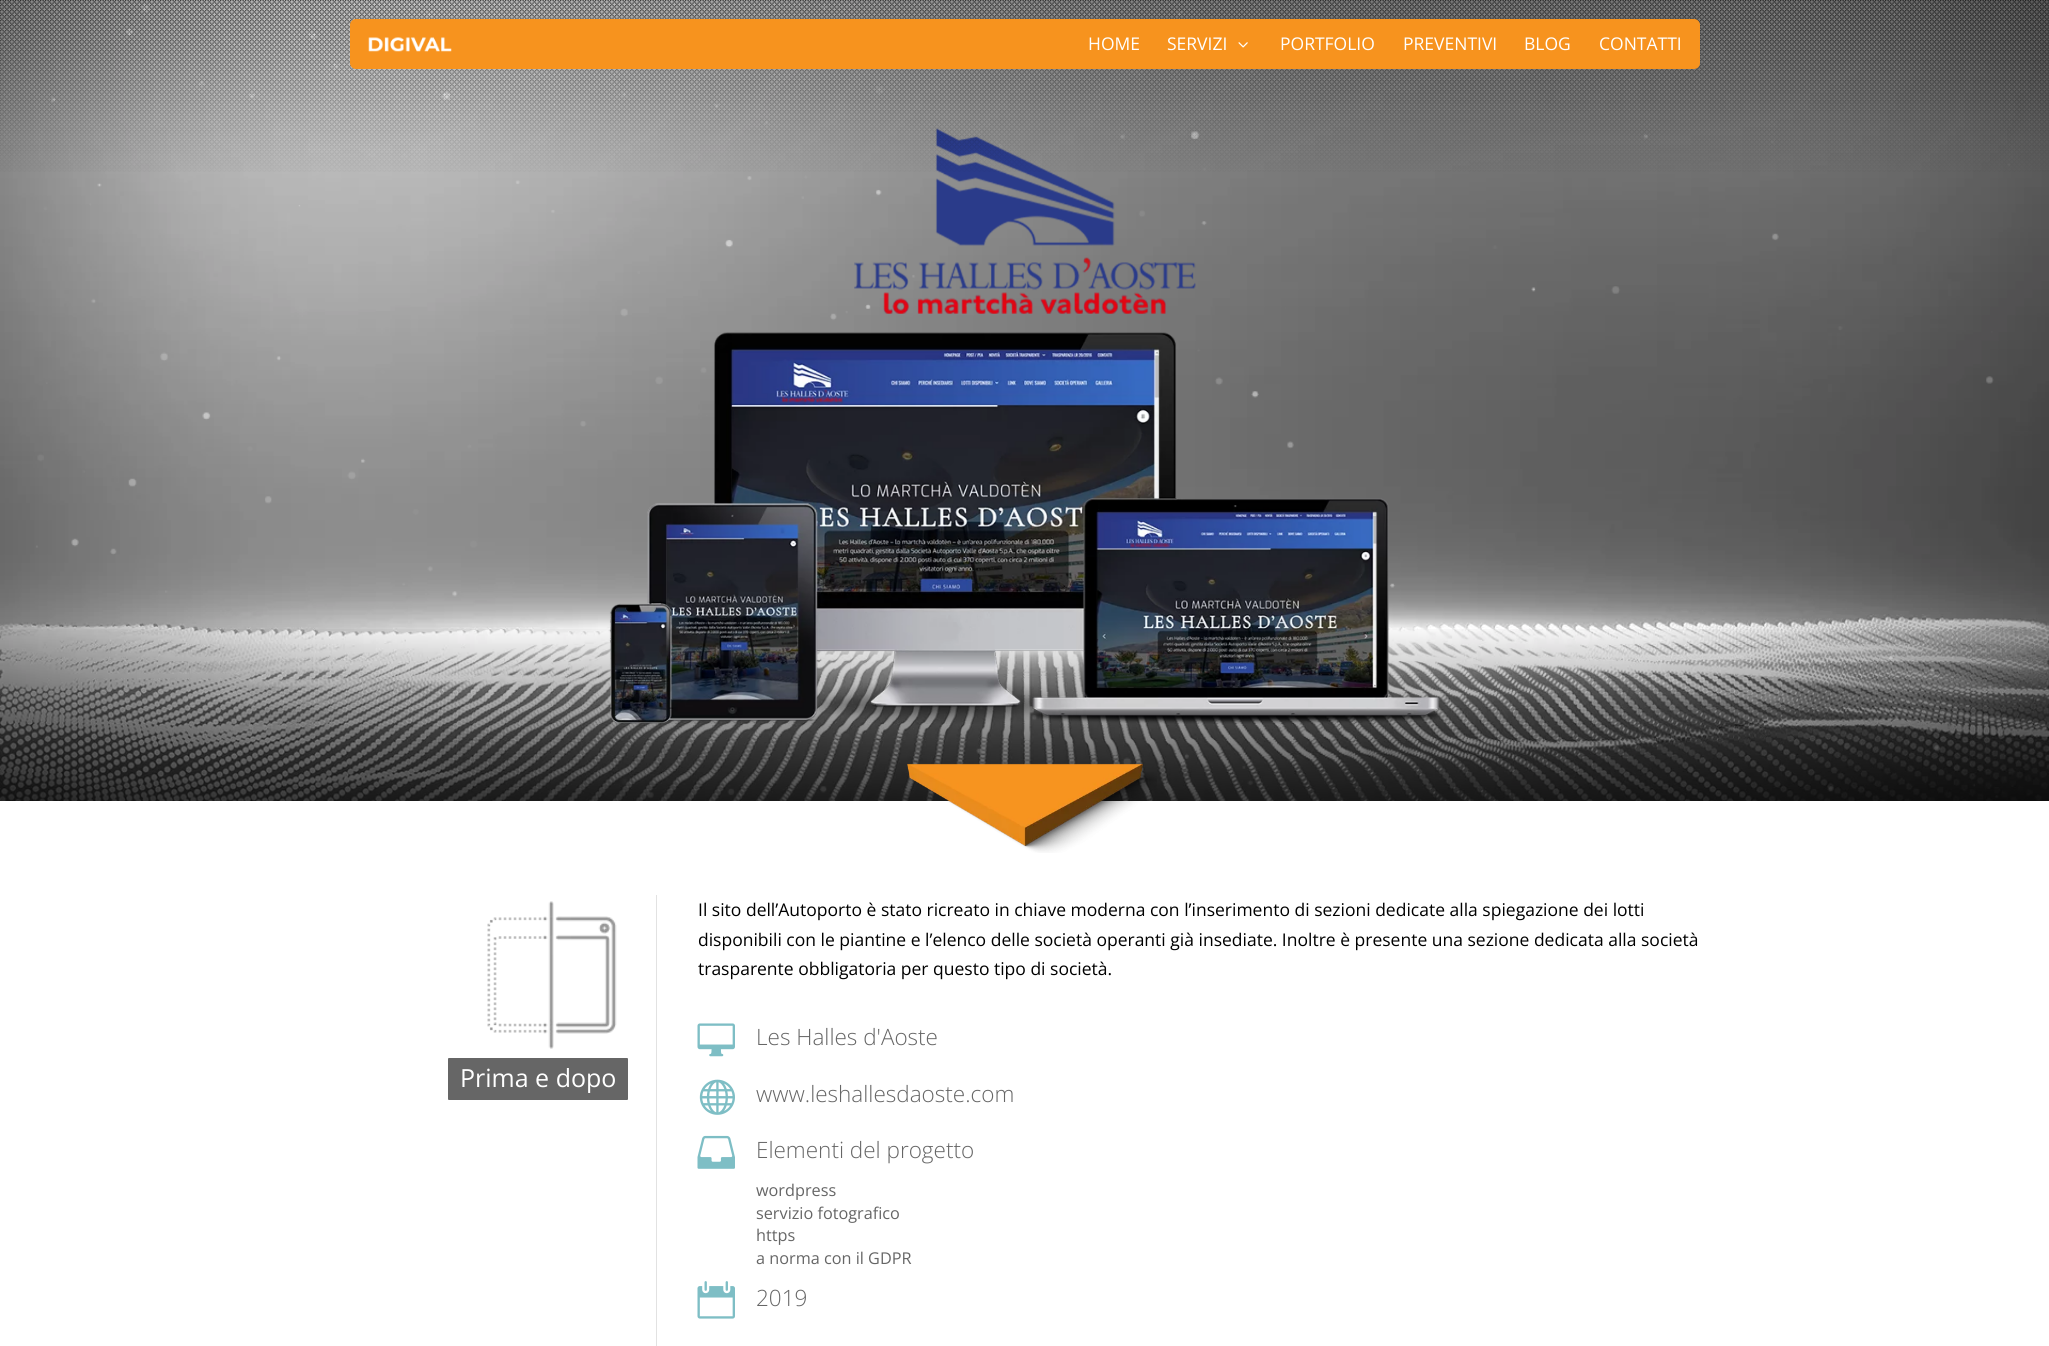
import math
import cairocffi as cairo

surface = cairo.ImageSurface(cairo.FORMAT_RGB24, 2049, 1346)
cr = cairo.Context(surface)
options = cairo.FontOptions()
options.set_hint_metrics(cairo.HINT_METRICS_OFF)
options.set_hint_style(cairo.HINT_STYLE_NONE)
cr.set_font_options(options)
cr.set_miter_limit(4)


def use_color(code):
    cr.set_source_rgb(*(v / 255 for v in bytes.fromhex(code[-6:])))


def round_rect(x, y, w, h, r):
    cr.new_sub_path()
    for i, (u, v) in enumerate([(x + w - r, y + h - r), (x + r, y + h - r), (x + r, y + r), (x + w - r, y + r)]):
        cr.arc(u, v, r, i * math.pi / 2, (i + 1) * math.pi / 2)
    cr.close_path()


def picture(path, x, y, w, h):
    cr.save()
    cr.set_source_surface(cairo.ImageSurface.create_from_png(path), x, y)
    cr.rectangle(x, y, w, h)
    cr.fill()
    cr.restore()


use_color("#ffffff")
cr.paint()
picture("img4.png", 0, 0, 2049, 801)
picture("img5.png", 12, 0, 1998, 801)
picture("img6.png", 854, 128, 342, 186)
picture("img1.png", 0, 0, 2049, 172)
use_color("#f7931e")
round_rect(350, 19, 1350, 50, 6)
cr.fill()
picture("img2.png", 368, 37, 84, 15)
cr.select_font_face("Open Sans")
cr.set_font_size(17.5)
use_color("#ffffff")
cr.move_to(1088, 50)
cr.show_text("HOME")
cr.move_to(1167, 50)
cr.show_text("SERVIZI")
picture("img3.png", 1238, 42, 10, 6)
cr.move_to(1280, 50)
cr.show_text("PORTFOLIO")
cr.move_to(1403, 50)
cr.show_text("PREVENTIVI")
cr.move_to(1524, 50)
cr.show_text("BLOG")
cr.move_to(1599, 50)
cr.show_text("CONTATTI")
gradient = cairo.LinearGradient(1025, 624, 1025, 811)
gradient.add_color_stop_rgba(0, 0, 0, 0, 0)
gradient.add_color_stop_rgba(1, 0, 0, 0, 0.77)
cr.set_source(gradient)
cr.rectangle(0, 629, 2049, 172)
cr.fill()
picture("img7.png", 609, 332, 832, 392)
picture("img8.png", 907, 763, 250, 90)
use_color("#e2e2e2")
cr.rectangle(656, 895, 1, 451)
cr.fill()
picture("img9.png", 487, 901, 130, 148)
use_color("#666666")
round_rect(446.5, 1056.5, 183, 45, 2.5)
cr.fill_preserve()
use_color("#ffffff")
cr.set_line_width(3)
cr.stroke()
cr.set_font_size(25)
cr.move_to(460, 1087)
cr.show_text("Prima e dopo")
cr.set_font_size(17.5)
use_color("#000000")
cr.move_to(698, 916)
cr.show_text("Il sito dell’Autoporto è stato ricreato in chiave moderna con l’inserimento di sezioni dedicate alla spiegazione dei lotti")
cr.move_to(698, 946)
cr.show_text("disponibili con le piantine e l’elenco delle società operanti già insediate. Inoltre è presente una sezione dedicata alla società")
cr.move_to(698, 975)
cr.show_text("trasparente obbligatoria per questo tipo di società.")
picture("img10.png", 697, 1023, 38, 34)
cr.select_font_face("Open Sans Light")
cr.set_font_size(22.5)
use_color("#666666")
cr.move_to(756, 1045)
cr.show_text("Les Halles d'Aoste")
picture("img11.png", 699, 1079, 36, 36)
cr.move_to(756, 1102)
cr.show_text("www.leshallesdaoste.com")
picture("img12.png", 697, 1135, 38, 34)
cr.move_to(756, 1158)
cr.show_text("Elementi del progetto")
cr.select_font_face("Open Sans")
cr.set_font_size(16.25)
cr.move_to(756, 1196)
cr.show_text("wordpress")
cr.move_to(756, 1219)
cr.show_text("servizio fotografico")
cr.move_to(756, 1241)
cr.show_text("https")
cr.move_to(756, 1264)
cr.show_text("a norma con il GDPR")
picture("img13.png", 697, 1281, 38, 38)
cr.select_font_face("Open Sans Light")
cr.set_font_size(22.5)
cr.move_to(756, 1306)
cr.show_text("2019")
surface.write_to_png("result.png")
